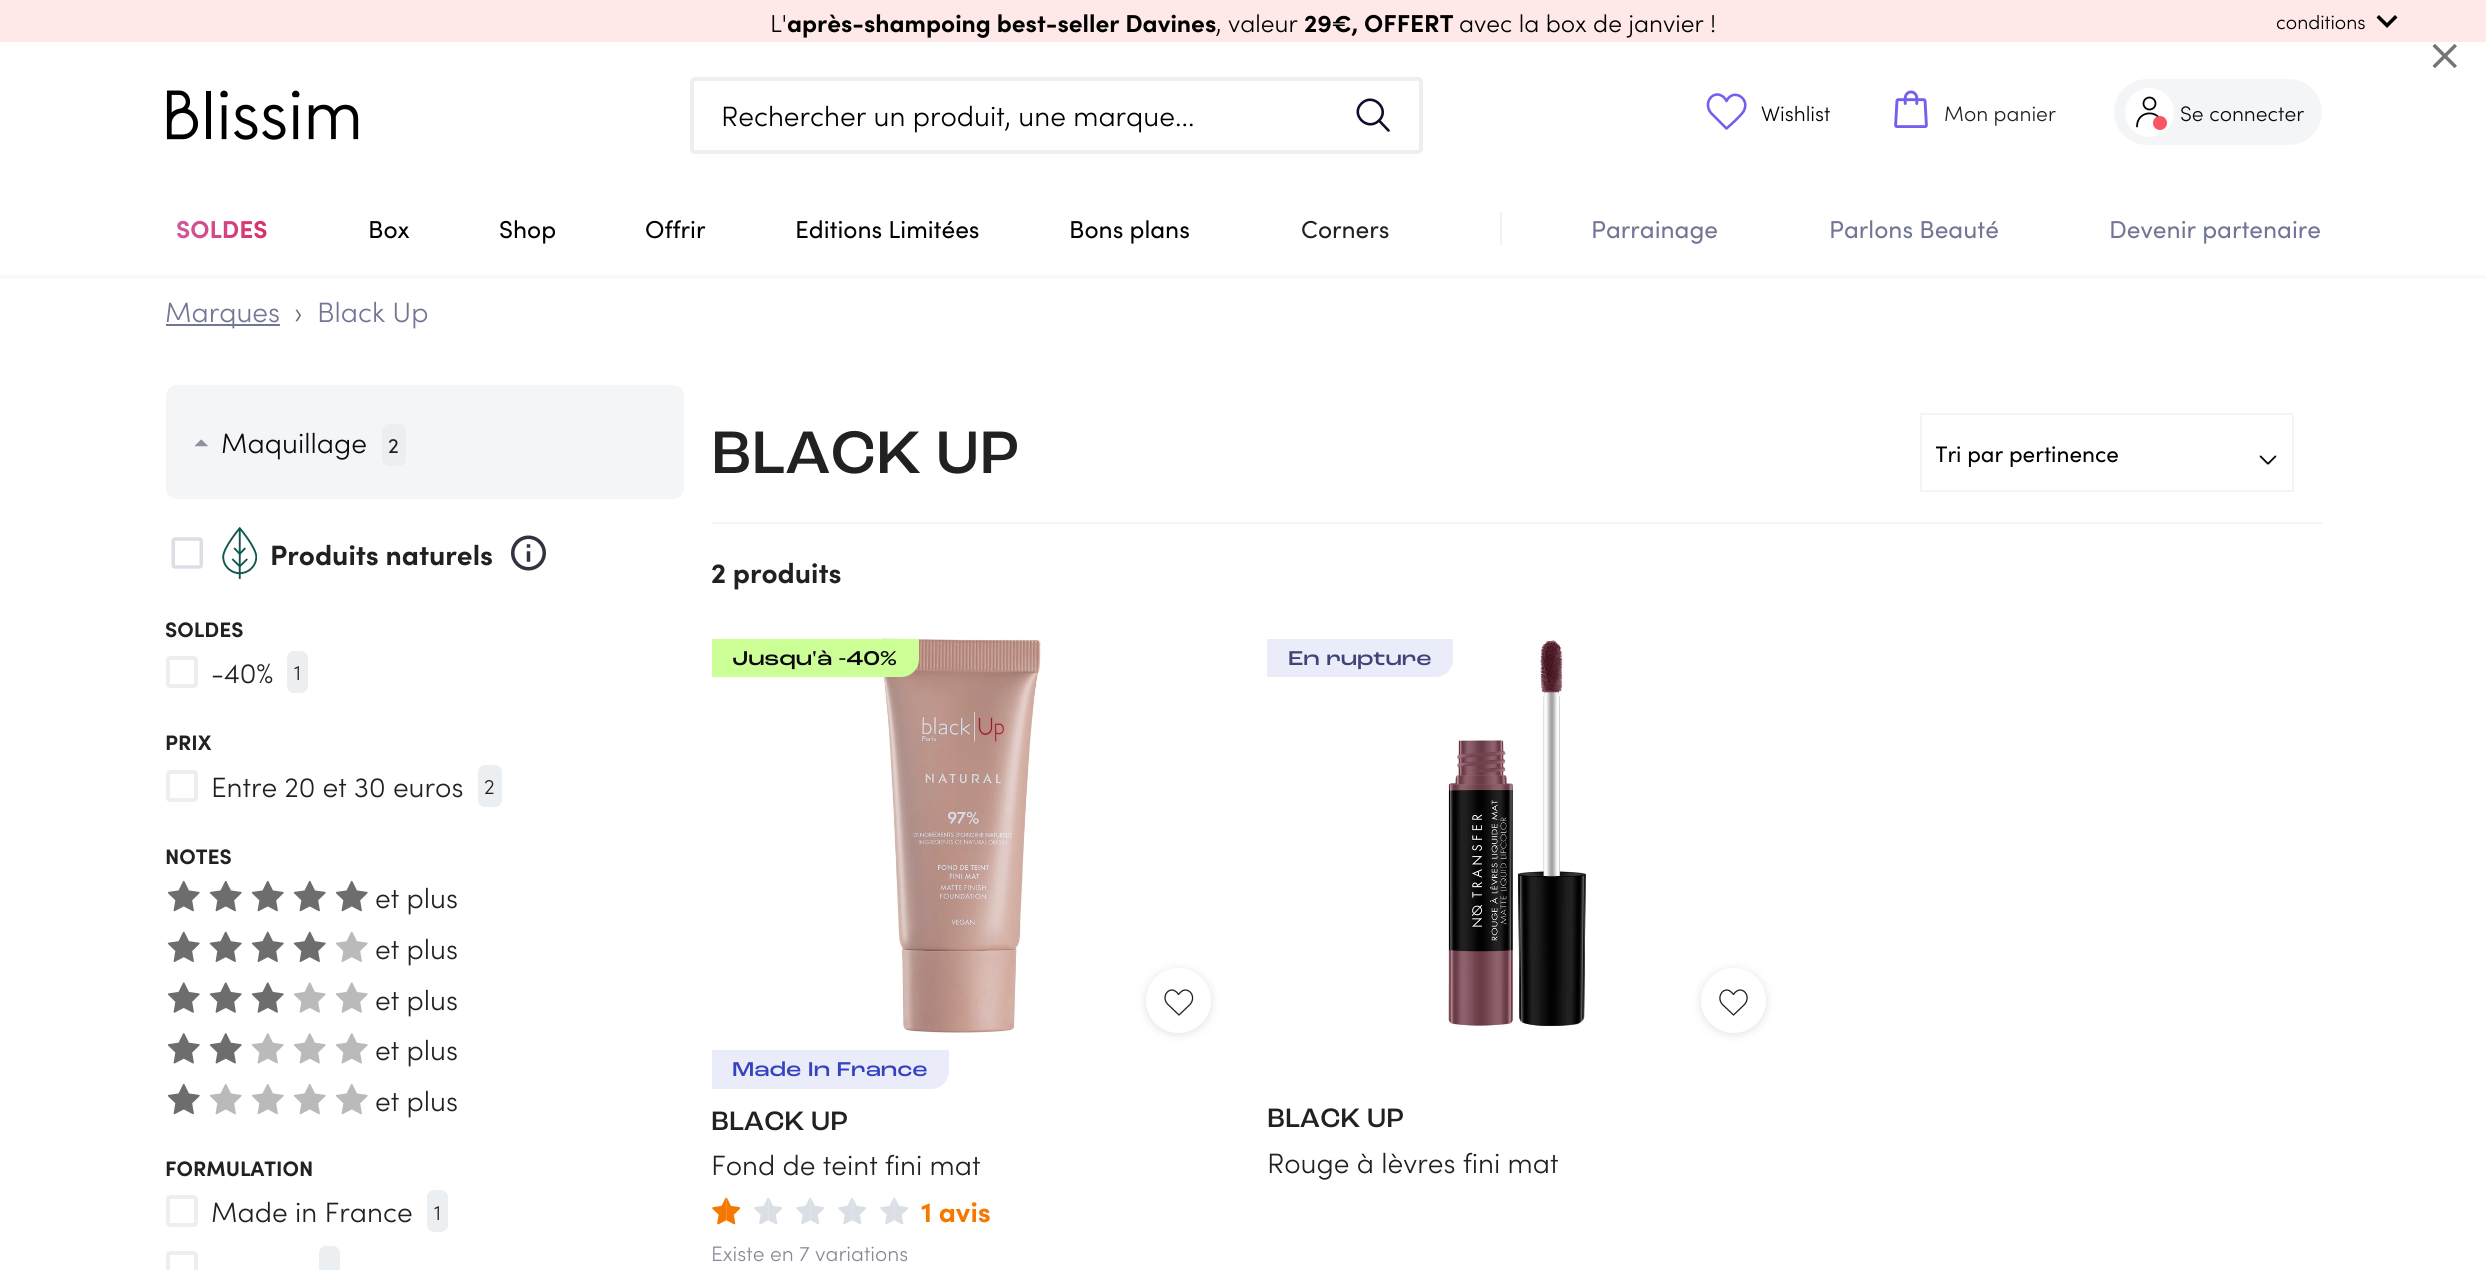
import math
import cairocffi as cairo

surface = cairo.ImageSurface(cairo.FORMAT_RGB24, 2486, 1270)
cr = cairo.Context(surface)
options = cairo.FontOptions()
options.set_hint_metrics(cairo.HINT_METRICS_OFF)
options.set_hint_style(cairo.HINT_STYLE_NONE)
cr.set_font_options(options)
cr.set_miter_limit(4)


def use_color(code):
    cr.set_source_rgb(*(v / 255 for v in bytes.fromhex(code[-6:])))


def round_rect(x, y, w, h, r):
    cr.new_sub_path()
    for i, (u, v) in enumerate([(x + w - r, y + h - r), (x + r, y + h - r), (x + r, y + r), (x + w - r, y + r)]):
        cr.arc(u, v, r, i * math.pi / 2, (i + 1) * math.pi / 2)
    cr.close_path()


def shadow(x, y, w, h, r, blur, alpha):
    cr.push_group_with_content(cairo.CONTENT_ALPHA)
    cr.set_operator(cairo.OPERATOR_SOURCE)
    for i in range(15, -16, -2):
        e = blur * i / 6
        if min(w, h) + 2 * e > 0:
            cr.set_source_rgba(0, 0, 0, alpha * math.erfc((i - 1) / 8.5) / 2)
            round_rect(x - e, y - e, w + 2 * e, h + 2 * e, max(0, min(r + e + blur * .6, min(w, h) / 2 + e)))
            cr.fill()
    cr.mask(cr.pop_group())


def picture(path, x, y, w, h):
    cr.save()
    cr.set_source_surface(cairo.ImageSurface.create_from_png(path), x, y)
    cr.rectangle(x, y, w, h)
    cr.fill()
    cr.restore()


use_color("#ffffff")
cr.paint()
use_color("#fee9e8")
cr.rectangle(0, 0, 2486, 42)
cr.fill()
cr.select_font_face("Sofia Light")
cr.set_font_size(24.5)
use_color("#000000")
cr.move_to(770, 32)
cr.show_text("L'")
cr.select_font_face("Sofia", cairo.FONT_SLANT_NORMAL, cairo.FONT_WEIGHT_BOLD)
cr.move_to(787, 32)
cr.show_text("après-shampoing best-seller Davines")
cr.select_font_face("Sofia Light")
cr.move_to(1216, 32)
cr.show_text(", valeur")
cr.select_font_face("Sofia", cairo.FONT_SLANT_NORMAL, cairo.FONT_WEIGHT_BOLD)
cr.move_to(1304, 32)
cr.show_text("29€, OFFERT")
cr.select_font_face("Sofia Light")
cr.move_to(1459, 32)
cr.show_text("avec la box de janvier !")
cr.set_font_size(19.5)
cr.move_to(2276, 29)
cr.show_text("conditions")
cr.new_path()
cr.move_to(2395, 15)
cr.line_to(2387, 23)
cr.line_to(2379, 15)
cr.line_to(2376.5, 17.5)
cr.line_to(2387, 28)
cr.line_to(2397.5, 17.5)
cr.close_path()
cr.fill()
picture("img1.png", 166, 90, 193, 50)
round_rect(692, 79, 729, 73, 3)
use_color("#eceff2")
cr.set_line_width(4)
cr.stroke()
cr.set_font_size(28)
use_color("#000000")
cr.move_to(721, 126)
cr.show_text("Rechercher un produit, une marque...")
cr.new_path()
cr.move_to(1379, 120.5)
cr.curve_to(1367.5, 132, 1350, 114.5, 1361.5, 103.5)
cr.curve_to(1373, 92, 1390.5, 109.5, 1379, 120.5)
cr.close_path()
cr.move_to(1379, 120.5)
cr.line_to(1388.5, 130.5)
use_color("#0e0e2c")
cr.set_line_width(2.6)
cr.set_line_cap(cairo.LINE_CAP_ROUND)
cr.set_line_join(cairo.LINE_JOIN_ROUND)
cr.stroke()
cr.new_path()
cr.move_to(1717.5, 94.5)
cr.curve_to(1721, 94.5, 1725, 97.5, 1726.5, 101)
cr.curve_to(1733, 87.5, 1751, 98.5, 1743.5, 111.5)
cr.curve_to(1740, 116.5, 1731.5, 124, 1726.5, 128.5)
cr.line_to(1712.5, 114.5)
cr.curve_to(1704, 107, 1708.5, 94.5, 1717.5, 94.5)
cr.close_path()
use_color("#7361ed")
cr.stroke()
cr.set_font_size(21)
use_color("#000000")
cr.move_to(1761, 121)
cr.show_text("Wishlist")
picture("img2.png", 1894, 90, 34, 38)
use_color("#212121")
cr.move_to(1944, 121)
cr.show_text("Mon panier")
use_color("#f4f5f7")
round_rect(2114, 79, 208, 66, 33)
cr.fill()
use_color("#ffffff")
cr.arc(2149.5, 112.5, 24.5, 0, 2 * math.pi)
cr.fill()
cr.arc(2149.5, 103.5, 6, 0, 2 * math.pi)
use_color("#000000")
cr.set_line_width(1.8)
cr.set_line_cap(cairo.LINE_CAP_BUTT)
cr.set_line_join(cairo.LINE_JOIN_MITER)
cr.stroke()
cr.new_path()
cr.move_to(2162, 126.5)
cr.curve_to(2162, 109, 2137, 109, 2137, 126.5)
cr.set_line_cap(cairo.LINE_CAP_ROUND)
cr.set_line_join(cairo.LINE_JOIN_ROUND)
cr.stroke()
use_color("#f75665")
cr.arc(2160, 123, 7, 0, 2 * math.pi)
cr.fill()
use_color("#0b0910")
cr.move_to(2180, 121)
cr.show_text("Se connecter")
use_color("#fbf9f8")
cr.rectangle(0, 275, 2486, 4)
cr.fill()
cr.select_font_face("Sofia", cairo.FONT_SLANT_NORMAL, cairo.FONT_WEIGHT_BOLD)
cr.set_font_size(24.5)
gradient = cairo.LinearGradient(165, 228, 278, 228)
gradient.add_color_stop_rgba(0, 0.804, 0.376, 0.651, 1)
gradient.add_color_stop_rgba(1, 0.847, 0.169, 0.38, 1)
cr.set_source(gradient)
cr.move_to(176, 238)
cr.show_text("SOLDES")
cr.select_font_face("Sofia")
use_color("#000000")
cr.move_to(368, 238)
cr.show_text("Box")
cr.move_to(499, 238)
cr.show_text("Shop")
cr.move_to(645, 238)
cr.show_text("Offrir")
cr.move_to(795, 238)
cr.show_text("Editions Limitées")
cr.move_to(1069, 238)
cr.show_text("Bons plans")
use_color("#212121")
cr.move_to(1301, 238)
cr.show_text("Corners")
use_color("#f1f1f1")
cr.rectangle(1500, 212, 2, 33)
cr.fill()
use_color("#717694")
cr.move_to(1591, 238)
cr.show_text("Parrainage")
cr.move_to(1829, 238)
cr.show_text("Parlons Beauté")
cr.move_to(2109, 238)
cr.show_text("Devenir partenaire")
cr.rectangle(166, 324, 114, 2)
cr.fill()
cr.select_font_face("Sofia Light")
cr.set_font_size(28)
cr.move_to(165, 322)
cr.show_text("Marques")
use_color("#666666")
cr.move_to(294, 322)
cr.show_text("›")
use_color("#717694")
cr.move_to(317, 322)
cr.show_text("Black Up")
picture("img3.png", 2432, 43, 25, 26)
use_color("#f4f5f7")
round_rect(166, 385, 518, 114, 11)
cr.fill()
picture("img4.png", 194, 439, 14, 8)
use_color("#0b0910")
cr.move_to(221, 453)
cr.show_text("Maquillage")
use_color("#eceff2")
round_rect(382, 424, 24, 42, 7)
cr.fill()
cr.select_font_face("Sofia")
cr.set_font_size(21)
use_color("#212121")
cr.move_to(388, 453)
cr.show_text("2")
picture("img5.png", 171, 537, 32, 32)
picture("img6.png", 222, 527, 35, 52)
cr.select_font_face("Sofia", cairo.FONT_SLANT_NORMAL, cairo.FONT_WEIGHT_BOLD)
cr.set_font_size(28)
cr.move_to(270, 565)
cr.show_text("Produits naturels")
picture("img7.png", 511, 535, 35, 36)
cr.set_font_size(21)
cr.move_to(165, 637)
cr.show_text("SOLDES")
round_rect(168, 658, 28, 28, 2)
use_color("#eceff2")
cr.set_line_width(4)
cr.set_line_cap(cairo.LINE_CAP_BUTT)
cr.set_line_join(cairo.LINE_JOIN_MITER)
cr.stroke()
cr.select_font_face("Sofia Light")
cr.set_font_size(28)
use_color("#212121")
cr.move_to(211, 683)
cr.show_text("-40%")
use_color("#eceff2")
round_rect(287, 651, 21, 42, 7)
cr.fill()
cr.set_font_size(21)
use_color("#212121")
cr.move_to(294, 680)
cr.show_text("1")
cr.select_font_face("Sofia", cairo.FONT_SLANT_NORMAL, cairo.FONT_WEIGHT_BOLD)
cr.move_to(165, 750)
cr.show_text("PRIX")
round_rect(168, 772, 28, 28, 2)
use_color("#eceff2")
cr.stroke()
cr.select_font_face("Sofia Light")
cr.set_font_size(28)
use_color("#212121")
cr.move_to(211, 797)
cr.show_text("Entre 20 et 30 euros")
use_color("#eceff2")
round_rect(478, 765, 24, 42, 7)
cr.fill()
cr.set_font_size(21)
use_color("#212121")
cr.move_to(484, 794)
cr.show_text("2")
cr.select_font_face("Sofia", cairo.FONT_SLANT_NORMAL, cairo.FONT_WEIGHT_BOLD)
cr.move_to(165, 864)
cr.show_text("NOTES")
picture("img8.png", 167, 880, 33, 32)
picture("img8.png", 209, 880, 33, 32)
picture("img8.png", 251, 880, 33, 32)
picture("img8.png", 293, 880, 33, 32)
picture("img8.png", 335, 880, 33, 32)
cr.select_font_face("Sofia Light")
cr.set_font_size(28)
cr.move_to(375, 908)
cr.show_text("et plus")
picture("img9.png", 167, 931, 33, 31)
picture("img9.png", 209, 931, 33, 31)
picture("img9.png", 251, 931, 33, 31)
picture("img9.png", 293, 931, 33, 31)
picture("img10.png", 335, 931, 33, 31)
cr.move_to(375, 959)
cr.show_text("et plus")
picture("img11.png", 167, 982, 33, 31)
picture("img11.png", 209, 982, 33, 31)
picture("img11.png", 251, 982, 33, 31)
picture("img12.png", 293, 982, 33, 31)
picture("img12.png", 335, 982, 33, 31)
cr.move_to(375, 1010)
cr.show_text("et plus")
picture("img13.png", 167, 1033, 33, 31)
picture("img13.png", 209, 1033, 33, 31)
picture("img14.png", 251, 1033, 33, 31)
picture("img14.png", 293, 1033, 33, 31)
picture("img14.png", 335, 1033, 33, 31)
cr.move_to(375, 1060)
cr.show_text("et plus")
picture("img8.png", 167, 1083, 33, 32)
picture("img15.png", 209, 1084, 33, 31)
picture("img15.png", 251, 1084, 33, 31)
picture("img15.png", 293, 1084, 33, 31)
picture("img15.png", 335, 1084, 33, 31)
cr.move_to(375, 1111)
cr.show_text("et plus")
cr.select_font_face("Sofia", cairo.FONT_SLANT_NORMAL, cairo.FONT_WEIGHT_BOLD)
cr.set_font_size(21)
cr.move_to(165, 1176)
cr.show_text("FORMULATION")
round_rect(168, 1197, 28, 28, 2)
use_color("#eceff2")
cr.stroke()
cr.select_font_face("Sofia Light")
cr.set_font_size(28)
use_color("#212121")
cr.move_to(211, 1222)
cr.show_text("Made in France")
use_color("#eceff2")
round_rect(427, 1190, 21, 42, 7)
cr.fill()
cr.set_font_size(21)
use_color("#212121")
cr.move_to(434, 1220)
cr.show_text("1")
round_rect(168, 1253, 28, 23, 2)
use_color("#eceff2")
cr.stroke()
round_rect(319, 1246, 21, 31, 7)
cr.fill()
use_color("#f4f5f7")
cr.rectangle(712, 522, 1610, 2)
cr.fill()
cr.select_font_face("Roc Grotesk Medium")
cr.set_font_size(63)
use_color("#212121")
cr.move_to(711, 473)
cr.show_text("BLACK UP")
cr.rectangle(1921, 414, 372, 77)
use_color("#f4f5f7")
cr.set_line_width(2)
cr.stroke()
cr.save()
cr.rectangle(1936, 438, 301, 29)
cr.clip()
cr.select_font_face("Sofia")
cr.set_font_size(22.5)
use_color("#000000")
cr.move_to(1935, 462)
cr.show_text("Tri par pertinence")
cr.restore()
picture("img16.png", 2259, 455, 18, 10)
cr.select_font_face("Sofia", cairo.FONT_SLANT_NORMAL, cairo.FONT_WEIGHT_BOLD)
cr.set_font_size(28)
use_color("#212121")
cr.move_to(711, 583)
cr.show_text("2 produits")
picture("img17.png", 881, 638, 161, 395)
use_color("#ccff96")
cr.new_path()
cr.move_to(712, 639)
cr.line_to(919, 639)
cr.line_to(919, 659)
cr.curve_to(919, 669, 911, 677, 901, 677)
cr.line_to(712, 677)
cr.close_path()
cr.fill()
cr.select_font_face("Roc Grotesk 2 Medium")
cr.set_font_size(21)
use_color("#0b0910")
cr.move_to(732, 665)
cr.show_text("Jusqu'à -40%")
use_color("#000000")
shadow(1146, 970, 65, 64, 32, 5, 0.12)
use_color("#ffffff")
cr.arc(1178.5, 1000.5, 32.5, 0, 2 * math.pi)
cr.fill()
cr.new_path()
cr.move_to(1172, 990)
cr.curve_to(1174.5, 990, 1177.5, 992.5, 1178.5, 994.5)
cr.curve_to(1180, 992.5, 1182.5, 990, 1185, 990)
cr.curve_to(1192, 990, 1195.5, 999, 1189.5, 1005)
cr.line_to(1179, 1015)
cr.line_to(1168.5, 1005)
cr.curve_to(1162, 999.5, 1165.5, 990, 1172, 990)
cr.close_path()
use_color("#212121")
cr.set_line_width(1.3)
cr.set_line_cap(cairo.LINE_CAP_ROUND)
cr.set_line_join(cairo.LINE_JOIN_ROUND)
cr.stroke()
use_color("#ebecf9")
cr.new_path()
cr.move_to(712, 1050)
cr.line_to(949, 1050)
cr.line_to(949, 1071)
cr.curve_to(949, 1081, 941, 1089, 931, 1089)
cr.line_to(712, 1089)
cr.close_path()
cr.fill()
use_color("#3642bf")
cr.move_to(732, 1076)
cr.show_text("Made In France")
cr.select_font_face("Roc Grotesk Medium")
cr.set_font_size(28)
use_color("#212121")
cr.move_to(711, 1130)
cr.show_text("BLACK UP")
cr.select_font_face("Sofia Light")
cr.move_to(711, 1175)
cr.show_text("Fond de teint fini mat")
picture("img18.png", 712, 1197, 28, 28)
picture("img19.png", 754, 1197, 28, 28)
picture("img19.png", 796, 1197, 28, 28)
picture("img19.png", 838, 1197, 28, 28)
picture("img19.png", 880, 1197, 28, 28)
cr.select_font_face("Sofia", cairo.FONT_SLANT_NORMAL, cairo.FONT_WEIGHT_BOLD)
use_color("#f57800")
cr.move_to(921, 1222)
cr.show_text("1 avis")
cr.select_font_face("Sofia Light")
cr.set_font_size(21)
use_color("#878a99")
cr.move_to(711, 1261)
cr.show_text("Existe en 7 variations")
picture("img20.png", 1448, 640, 138, 387)
use_color("#ebecf9")
cr.new_path()
cr.move_to(1267, 639)
cr.line_to(1453, 639)
cr.line_to(1453, 659)
cr.curve_to(1453, 669, 1445, 677, 1435, 677)
cr.line_to(1267, 677)
cr.close_path()
cr.fill()
cr.select_font_face("Roc Grotesk 2 Medium")
use_color("#3f4377")
cr.move_to(1288, 665)
cr.show_text("En rupture")
use_color("#000000")
shadow(1701, 970, 65, 64, 32, 5, 0.12)
use_color("#ffffff")
cr.arc(1733.5, 1000.5, 32.5, 0, 2 * math.pi)
cr.fill()
cr.new_path()
cr.move_to(1727, 990)
cr.curve_to(1729.5, 990, 1732, 992.5, 1733.5, 994.5)
cr.curve_to(1734.5, 992.5, 1737.5, 990, 1740, 990)
cr.curve_to(1746.5, 990, 1750, 999, 1744, 1005)
cr.line_to(1733.5, 1015)
cr.line_to(1723, 1005)
cr.curve_to(1717, 999.5, 1720.5, 990, 1727, 990)
cr.close_path()
use_color("#212121")
cr.stroke()
cr.select_font_face("Roc Grotesk Medium")
cr.set_font_size(28)
cr.move_to(1267, 1127)
cr.show_text("BLACK UP")
cr.select_font_face("Sofia Light")
cr.move_to(1267, 1173)
cr.show_text("Rouge à lèvres fini mat")
surface.write_to_png("result.png")
